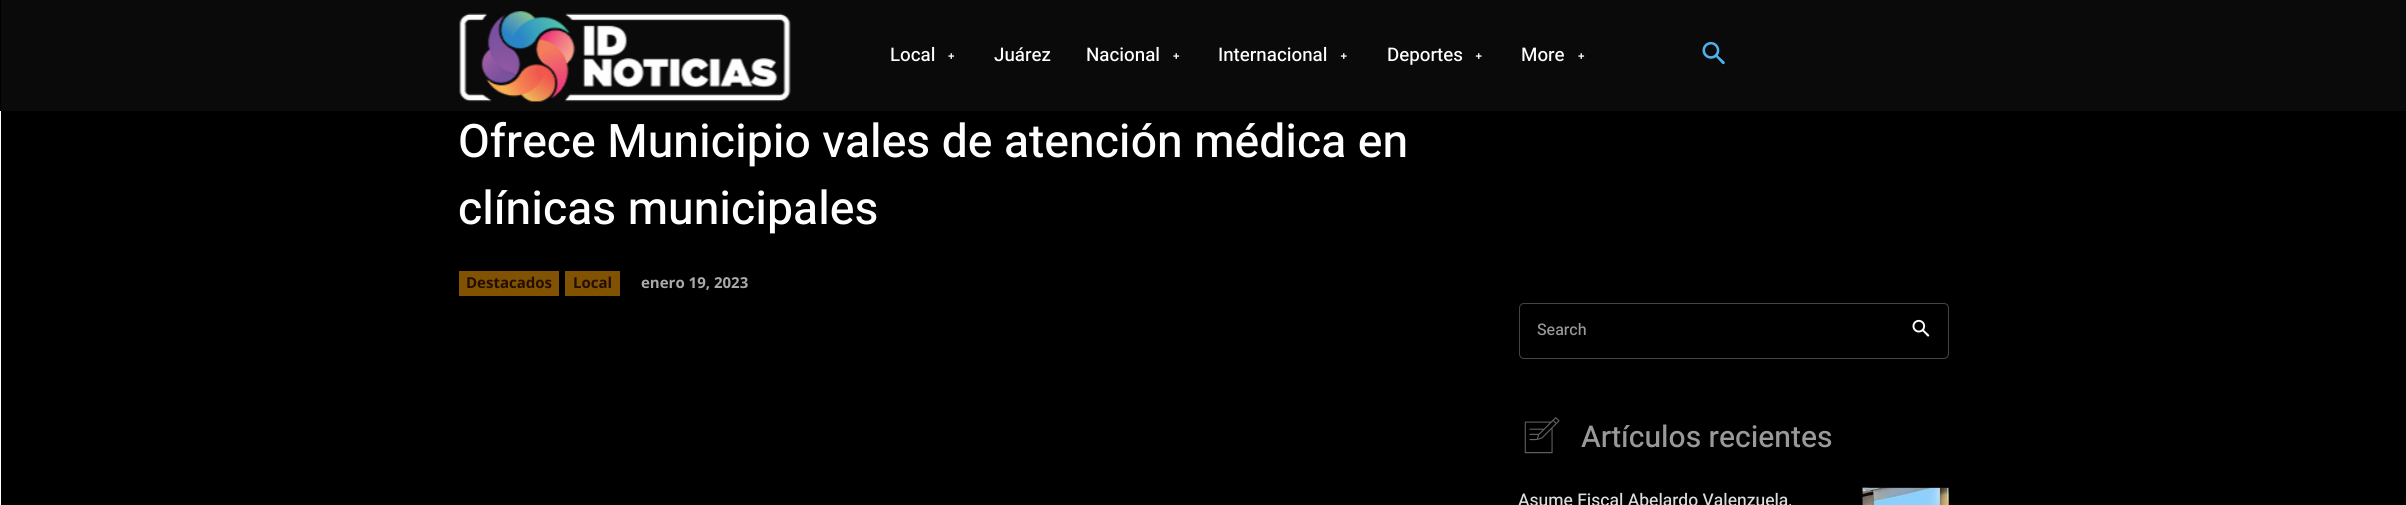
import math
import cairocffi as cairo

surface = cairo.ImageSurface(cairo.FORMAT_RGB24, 2406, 505)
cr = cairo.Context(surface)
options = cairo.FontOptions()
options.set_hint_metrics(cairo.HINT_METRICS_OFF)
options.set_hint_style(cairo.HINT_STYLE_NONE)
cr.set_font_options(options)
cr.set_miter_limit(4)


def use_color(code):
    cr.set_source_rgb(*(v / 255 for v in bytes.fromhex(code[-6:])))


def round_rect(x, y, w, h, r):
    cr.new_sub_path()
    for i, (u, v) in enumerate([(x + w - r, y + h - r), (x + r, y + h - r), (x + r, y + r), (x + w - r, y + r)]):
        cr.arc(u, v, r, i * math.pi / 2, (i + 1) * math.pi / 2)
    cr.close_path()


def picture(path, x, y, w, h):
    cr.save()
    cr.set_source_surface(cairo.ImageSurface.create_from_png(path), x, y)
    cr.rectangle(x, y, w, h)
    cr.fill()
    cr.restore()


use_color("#ffffff")
cr.paint()
use_color("#000000")
cr.rectangle(0, 0, 1, 111)
cr.fill()
use_color("#0a0a0a")
cr.rectangle(1, 0, 2405, 111)
cr.fill()
picture("img1.png", 459, 11, 332, 91)
cr.select_font_face("Heebo Medium")
cr.set_font_size(18.75)
use_color("#ffffff")
cr.move_to(890, 61)
cr.show_text("Local")
picture("img2.png", 948, 53, 7, 6)
cr.move_to(994, 61)
cr.show_text("Juárez")
cr.move_to(1086, 61)
cr.show_text("Nacional")
picture("img2.png", 1173, 53, 7, 6)
cr.move_to(1218, 61)
cr.show_text("Internacional")
picture("img3.png", 1340, 53, 7, 6)
cr.move_to(1387, 61)
cr.show_text("Deportes")
picture("img3.png", 1475, 53, 7, 6)
cr.move_to(1521, 61)
cr.show_text("More")
picture("img2.png", 1578, 53, 7, 6)
picture("img4.png", 1702, 41, 23, 24)
use_color("#000000")
cr.rectangle(1, 111, 2405, 394)
cr.fill()
cr.set_font_size(46.25)
use_color("#ffffff")
cr.move_to(458, 157)
cr.show_text("Ofrece Municipio vales de atención médica en")
cr.move_to(458, 224)
cr.show_text("clínicas municipales")
use_color("#805201")
cr.rectangle(459, 271, 100, 25)
cr.fill()
cr.select_font_face("Open Sans", cairo.FONT_SLANT_NORMAL, cairo.FONT_WEIGHT_BOLD)
cr.set_font_size(15)
use_color("#230e00")
cr.move_to(466, 288)
cr.show_text("Destacados")
use_color("#805201")
cr.rectangle(565, 271, 55, 25)
cr.fill()
use_color("#230e00")
cr.move_to(573, 288)
cr.show_text("Local")
use_color("#aaaaaa")
cr.move_to(641, 288)
cr.show_text("enero 19, 2023")
round_rect(1519.5, 303.5, 429, 55, 4.5)
use_color("#444444")
cr.set_line_width(1)
cr.stroke()
cr.select_font_face("Heebo Medium")
cr.set_font_size(16)
use_color("#999999")
cr.move_to(1537, 335)
cr.show_text("Search")
picture("img5.png", 1912, 319, 18, 18)
picture("img6.png", 1524, 417, 36, 37)
cr.set_font_size(30)
cr.move_to(1581, 447)
cr.show_text("Artículos recientes")
cr.set_font_size(17.5)
use_color("#dddddd")
cr.move_to(1518, 506)
cr.show_text("Asume Fiscal Abelardo Valenzuela,")
picture("img7.png", 1862, 487, 87, 18)
surface.write_to_png("result.png")
